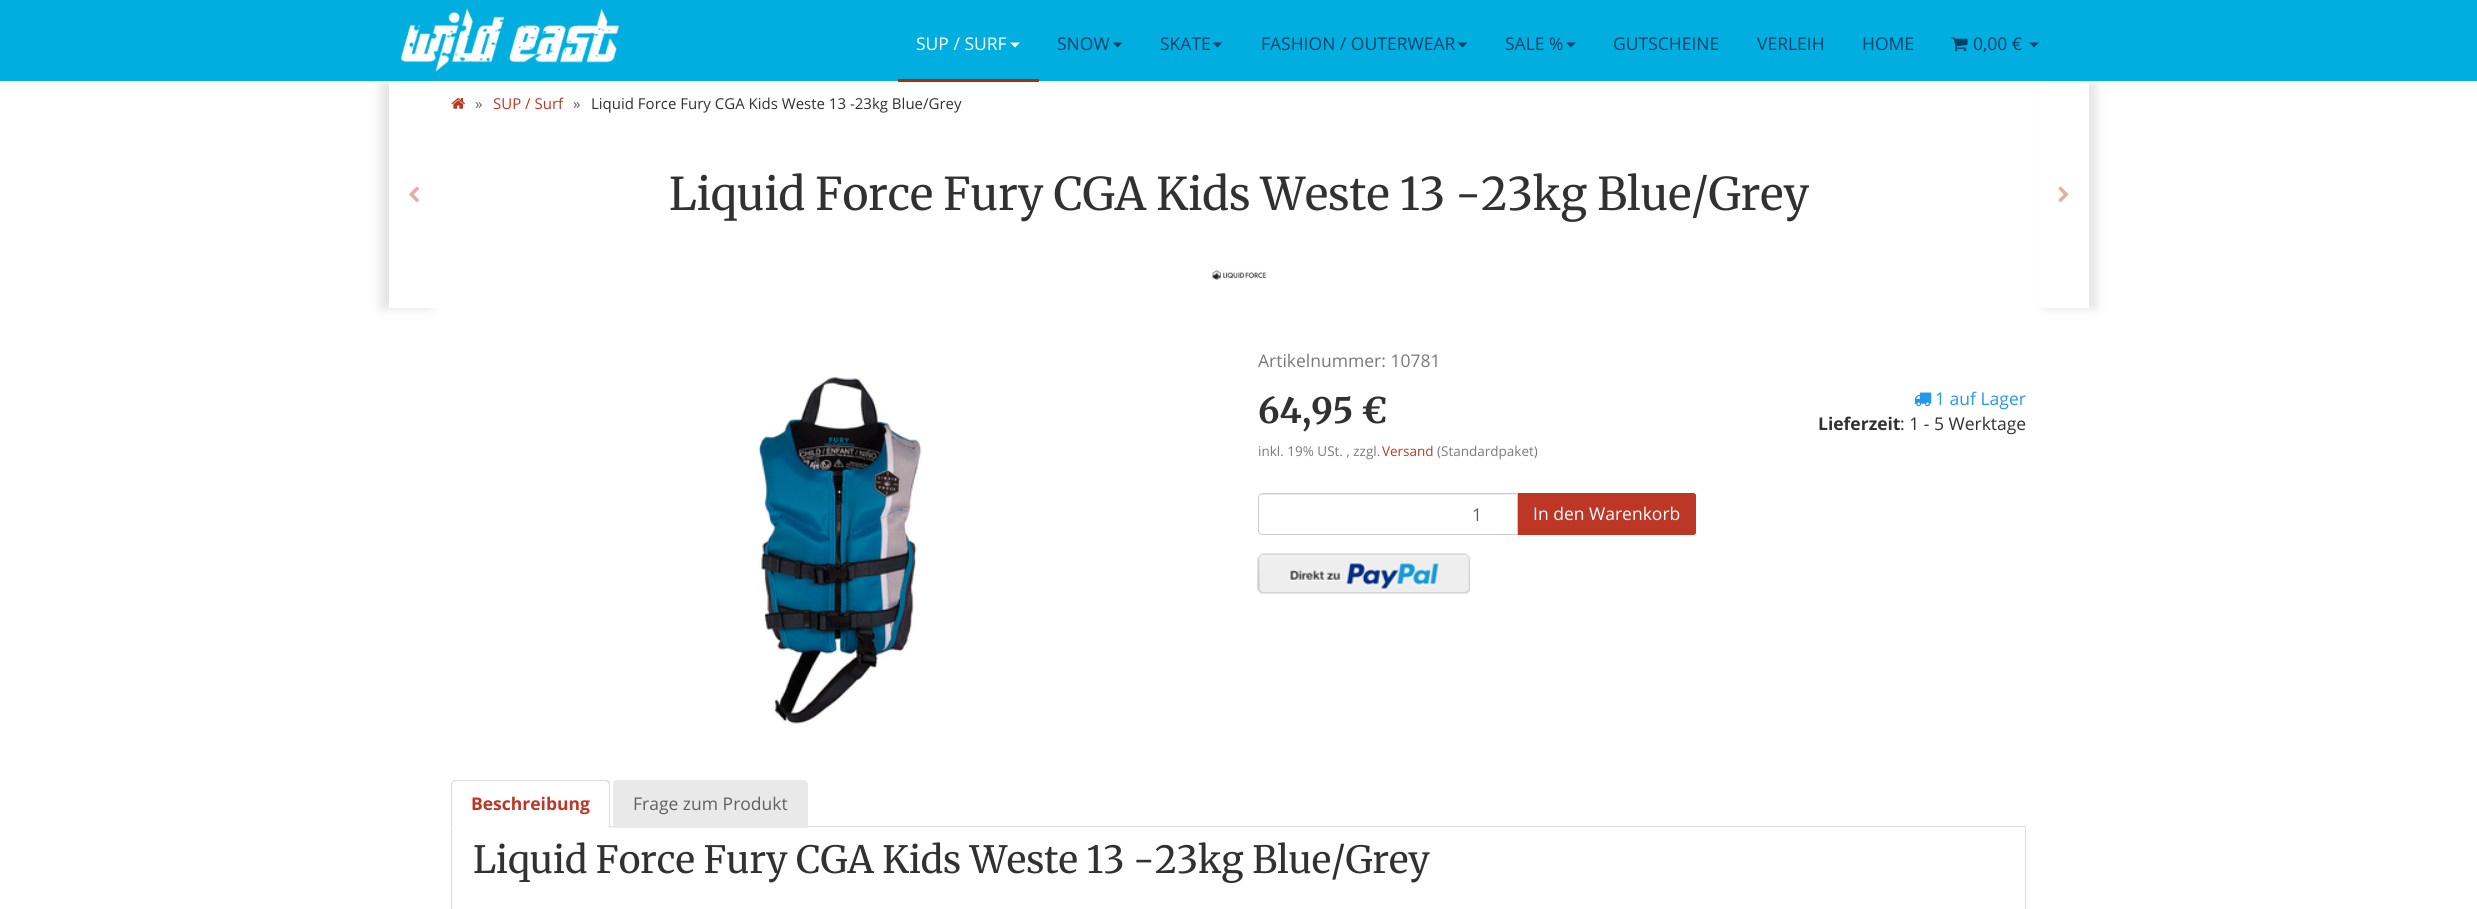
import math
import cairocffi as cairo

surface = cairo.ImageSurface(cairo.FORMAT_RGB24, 2477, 909)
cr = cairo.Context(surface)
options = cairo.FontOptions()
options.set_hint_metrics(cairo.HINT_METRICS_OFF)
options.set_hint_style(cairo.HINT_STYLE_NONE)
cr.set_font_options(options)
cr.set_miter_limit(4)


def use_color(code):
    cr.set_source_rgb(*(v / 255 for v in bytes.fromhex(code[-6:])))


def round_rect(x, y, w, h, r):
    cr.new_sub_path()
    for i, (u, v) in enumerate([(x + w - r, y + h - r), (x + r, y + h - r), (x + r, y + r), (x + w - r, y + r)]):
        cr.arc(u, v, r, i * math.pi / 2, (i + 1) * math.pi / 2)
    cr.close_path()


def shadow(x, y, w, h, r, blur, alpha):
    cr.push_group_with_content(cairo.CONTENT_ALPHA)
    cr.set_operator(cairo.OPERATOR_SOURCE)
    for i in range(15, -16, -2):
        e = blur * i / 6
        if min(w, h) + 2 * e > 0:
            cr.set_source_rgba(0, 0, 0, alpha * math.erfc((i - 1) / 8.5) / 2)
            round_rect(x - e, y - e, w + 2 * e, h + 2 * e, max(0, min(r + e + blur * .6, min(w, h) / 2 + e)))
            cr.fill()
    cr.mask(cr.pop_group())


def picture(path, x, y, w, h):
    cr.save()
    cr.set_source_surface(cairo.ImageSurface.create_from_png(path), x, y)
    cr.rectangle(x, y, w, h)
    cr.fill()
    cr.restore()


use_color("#ffffff")
cr.paint()
cr.save()
cr.set_fill_rule(cairo.FILL_RULE_EVEN_ODD)
cr.new_path()
cr.move_to(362, 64)
cr.line_to(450, 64)
cr.line_to(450, 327)
cr.line_to(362, 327)
cr.close_path()
cr.move_to(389, 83)
cr.line_to(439, 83)
cr.line_to(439, 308)
cr.line_to(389, 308)
cr.close_path()
cr.clip()
use_color("#000000")
shadow(381, 83, 50, 225, 0, 6, 0.12)
cr.restore()
cr.save()
cr.set_fill_rule(cairo.FILL_RULE_EVEN_ODD)
cr.new_path()
cr.move_to(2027, 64)
cr.line_to(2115, 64)
cr.line_to(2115, 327)
cr.line_to(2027, 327)
cr.close_path()
cr.move_to(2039, 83)
cr.line_to(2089, 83)
cr.line_to(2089, 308)
cr.line_to(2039, 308)
cr.close_path()
cr.clip()
use_color("#000000")
shadow(2046, 83, 50, 225, 0, 6, 0.12)
cr.restore()
use_color("#00afe0")
cr.rectangle(0, 0, 2477, 81)
cr.fill()
picture("img1.png", 401, 8, 218, 64)
use_color("#b02c07")
cr.rectangle(898, 79, 141, 3)
cr.fill()
cr.select_font_face("Open Sans")
cr.set_font_size(17.5)
use_color("#ffffff")
cr.move_to(916, 50)
cr.show_text("SUP / SURF")
cr.new_path()
cr.move_to(1010, 42.5)
cr.line_to(1020, 42.5)
cr.line_to(1015, 47.5)
cr.close_path()
cr.fill()
use_color("#004069")
cr.move_to(1057, 50)
cr.show_text("SNOW")
cr.new_path()
cr.move_to(1112.5, 42.5)
cr.line_to(1122.5, 42.5)
cr.line_to(1117.5, 47.5)
cr.close_path()
cr.fill()
cr.move_to(1160, 50)
cr.show_text("SKATE")
cr.new_path()
cr.move_to(1212.5, 42.5)
cr.line_to(1222.5, 42.5)
cr.line_to(1217.5, 47.5)
cr.close_path()
cr.fill()
cr.move_to(1261, 50)
cr.show_text("FASHION / OUTERWEAR")
cr.new_path()
cr.move_to(1457.5, 42.5)
cr.line_to(1467.5, 42.5)
cr.line_to(1462.5, 47.5)
cr.close_path()
cr.fill()
cr.move_to(1505, 50)
cr.show_text("SALE %")
cr.new_path()
cr.move_to(1566, 42.5)
cr.line_to(1576, 42.5)
cr.line_to(1571, 47.5)
cr.close_path()
cr.fill()
cr.move_to(1613, 50)
cr.show_text("GUTSCHEINE")
cr.move_to(1757, 50)
cr.show_text("VERLEIH")
cr.move_to(1862, 50)
cr.show_text("HOME")
picture("img2.png", 1951, 37, 17, 15)
cr.move_to(1973, 50)
cr.show_text("0,00 €")
cr.new_path()
cr.move_to(2029, 42.5)
cr.line_to(2039, 42.5)
cr.line_to(2034, 47.5)
cr.close_path()
cr.fill()
cr.set_source_rgba(1, 1, 1, 0.4)
cr.rectangle(389, 307, 37, 1)
cr.fill()
picture("img3.png", 409, 186, 10, 17)
picture("img4.png", 451, 98, 14, 11)
cr.set_font_size(15)
use_color("#606060")
cr.move_to(475, 109)
cr.show_text("»")
use_color("#bc3726")
cr.move_to(493, 109)
cr.show_text("SUP / Surf")
use_color("#606060")
cr.move_to(573, 109)
cr.show_text("»")
use_color("#313131")
cr.move_to(591, 109)
cr.show_text("Liquid Force Fury CGA Kids Weste 13 -23kg Blue/Grey")
cr.select_font_face("Merriweather")
cr.set_font_size(45)
cr.move_to(669, 210)
cr.show_text("Liquid Force Fury CGA Kids Weste 13 -23kg Blue/Grey")
picture("img5.png", 1212, 270, 55, 10)
picture("img6.png", 758, 377, 164, 347)
cr.select_font_face("Open Sans")
cr.set_font_size(17.5)
use_color("#797979")
cr.move_to(1258, 367)
cr.show_text("Artikelnummer: 10781")
cr.select_font_face("Merriweather", cairo.FONT_SLANT_NORMAL, cairo.FONT_WEIGHT_BOLD)
cr.set_font_size(35)
use_color("#313131")
cr.move_to(1258, 423)
cr.show_text("64,95 €")
cr.select_font_face("Open Sans")
cr.set_font_size(13.5)
use_color("#797979")
cr.move_to(1258, 456)
cr.show_text("inkl. 19% USt. , zzgl.")
use_color("#bc3726")
cr.move_to(1382, 456)
cr.show_text("Versand")
use_color("#797979")
cr.move_to(1437, 456)
cr.show_text("(Standardpaket)")
picture("img7.png", 1914, 392, 18, 15)
cr.set_font_size(17.5)
use_color("#2896ec")
cr.move_to(1935, 405)
cr.show_text("1 auf Lager")
cr.select_font_face("Open Sans", cairo.FONT_SLANT_NORMAL, cairo.FONT_WEIGHT_BOLD)
use_color("#313131")
cr.move_to(1818, 430)
cr.show_text("Lieferzeit")
cr.select_font_face("Open Sans")
cr.move_to(1900, 430)
cr.show_text(": 1 - 5 Werktage")
use_color("#bc3726")
cr.new_path()
cr.move_to(1516.5, 493.5)
cr.line_to(1693.5, 493.5)
cr.curve_to(1694.5, 493.5, 1695.5, 494.5, 1695.5, 495.5)
cr.line_to(1695.5, 532.5)
cr.curve_to(1695.5, 533.5, 1694.5, 534.5, 1693.5, 534.5)
cr.line_to(1516.5, 534.5)
cr.close_path()
cr.fill_preserve()
cr.set_line_width(1)
cr.stroke()
use_color("#ffffff")
cr.new_path()
cr.move_to(1263, 493)
cr.line_to(1518, 493)
cr.line_to(1518, 535)
cr.line_to(1263, 535)
cr.curve_to(1260, 535, 1258, 533, 1258, 530)
cr.line_to(1258, 498)
cr.curve_to(1258, 495, 1260, 493, 1263, 493)
cr.close_path()
cr.fill()
use_color("#ececec")
cr.new_path()
cr.move_to(1262, 495)
cr.line_to(1516, 495)
cr.line_to(1516, 494)
cr.line_to(1263, 494)
cr.curve_to(1261, 494, 1259, 496, 1259, 498)
cr.line_to(1259, 499)
cr.curve_to(1259, 497, 1260, 495, 1262, 495)
cr.close_path()
cr.fill()
cr.new_path()
cr.move_to(1263, 493.5)
cr.line_to(1517.5, 493.5)
cr.line_to(1517.5, 534.5)
cr.line_to(1263, 534.5)
cr.curve_to(1260.5, 534.5, 1258.5, 532.5, 1258.5, 530)
cr.line_to(1258.5, 498)
cr.curve_to(1258.5, 495.5, 1260.5, 493.5, 1263, 493.5)
cr.close_path()
use_color("#cccccc")
cr.stroke()
use_color("#606060")
cr.move_to(1472, 521)
cr.show_text("1")
use_color("#ffffff")
cr.move_to(1533, 520)
cr.show_text("In den Warenkorb")
picture("img8.png", 1257, 553, 213, 41)
use_color("#dddddd")
cr.rectangle(610, 826, 1416, 1)
cr.fill()
cr.new_path()
cr.move_to(456, 780)
cr.curve_to(455, 780, 453, 780, 453, 781)
cr.line_to(453, 782)
cr.line_to(456, 781)
cr.line_to(605, 781)
cr.line_to(608, 782)
cr.line_to(609, 781)
cr.curve_to(608, 780, 606, 780, 605, 780)
cr.close_path()
cr.fill()
cr.new_path()
cr.move_to(610, 828)
cr.line_to(610, 785)
cr.curve_to(610, 784, 610, 782, 609, 781)
cr.line_to(608, 782)
cr.curve_to(608, 783, 609, 784, 609, 785)
cr.line_to(609, 826)
cr.line_to(608, 826)
cr.close_path()
cr.fill()
cr.new_path()
cr.move_to(451, 828)
cr.line_to(451, 783)
cr.line_to(453, 781)
cr.line_to(453, 782)
cr.curve_to(453, 783, 452, 784, 452, 785)
cr.line_to(452, 826)
cr.line_to(453, 826)
cr.close_path()
cr.fill()
cr.select_font_face("Open Sans", cairo.FONT_SLANT_NORMAL, cairo.FONT_WEIGHT_BOLD)
use_color("#bc3726")
cr.move_to(471, 810)
cr.show_text("Beschreibung")
use_color("#e9e9e9")
cr.new_path()
cr.move_to(618, 780)
cr.line_to(803, 780)
cr.curve_to(806, 780, 808, 782, 808, 785)
cr.line_to(808, 828)
cr.line_to(613, 828)
cr.line_to(613, 785)
cr.curve_to(613, 782, 615, 780, 618, 780)
cr.close_path()
cr.fill()
cr.select_font_face("Open Sans")
use_color("#606060")
cr.move_to(633, 810)
cr.show_text("Frage zum Produkt")
use_color("#dddddd")
cr.set_fill_rule(cairo.FILL_RULE_EVEN_ODD)
cr.new_path()
cr.move_to(451, 828)
cr.line_to(2026, 828)
cr.line_to(2026, 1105)
cr.curve_to(2026, 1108, 2023, 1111, 2020, 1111)
cr.line_to(458, 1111)
cr.curve_to(454, 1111, 451, 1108, 451, 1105)
cr.close_path()
cr.move_to(452, 828)
cr.line_to(2025, 828)
cr.line_to(2025, 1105)
cr.curve_to(2025, 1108, 2023, 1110, 2020, 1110)
cr.line_to(458, 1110)
cr.curve_to(455, 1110, 452, 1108, 452, 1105)
cr.close_path()
cr.fill()
cr.select_font_face("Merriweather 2")
cr.set_font_size(37.5)
use_color("#313131")
cr.move_to(473, 873)
cr.show_text("Liquid Force Fury CGA Kids Weste 13 -23kg Blue/Grey")
cr.set_source_rgba(1, 1, 1, 0.4)
cr.rectangle(2051, 92, 38, 216)
cr.fill()
picture("img9.png", 2058, 186, 11, 17)
surface.write_to_png("result.png")
